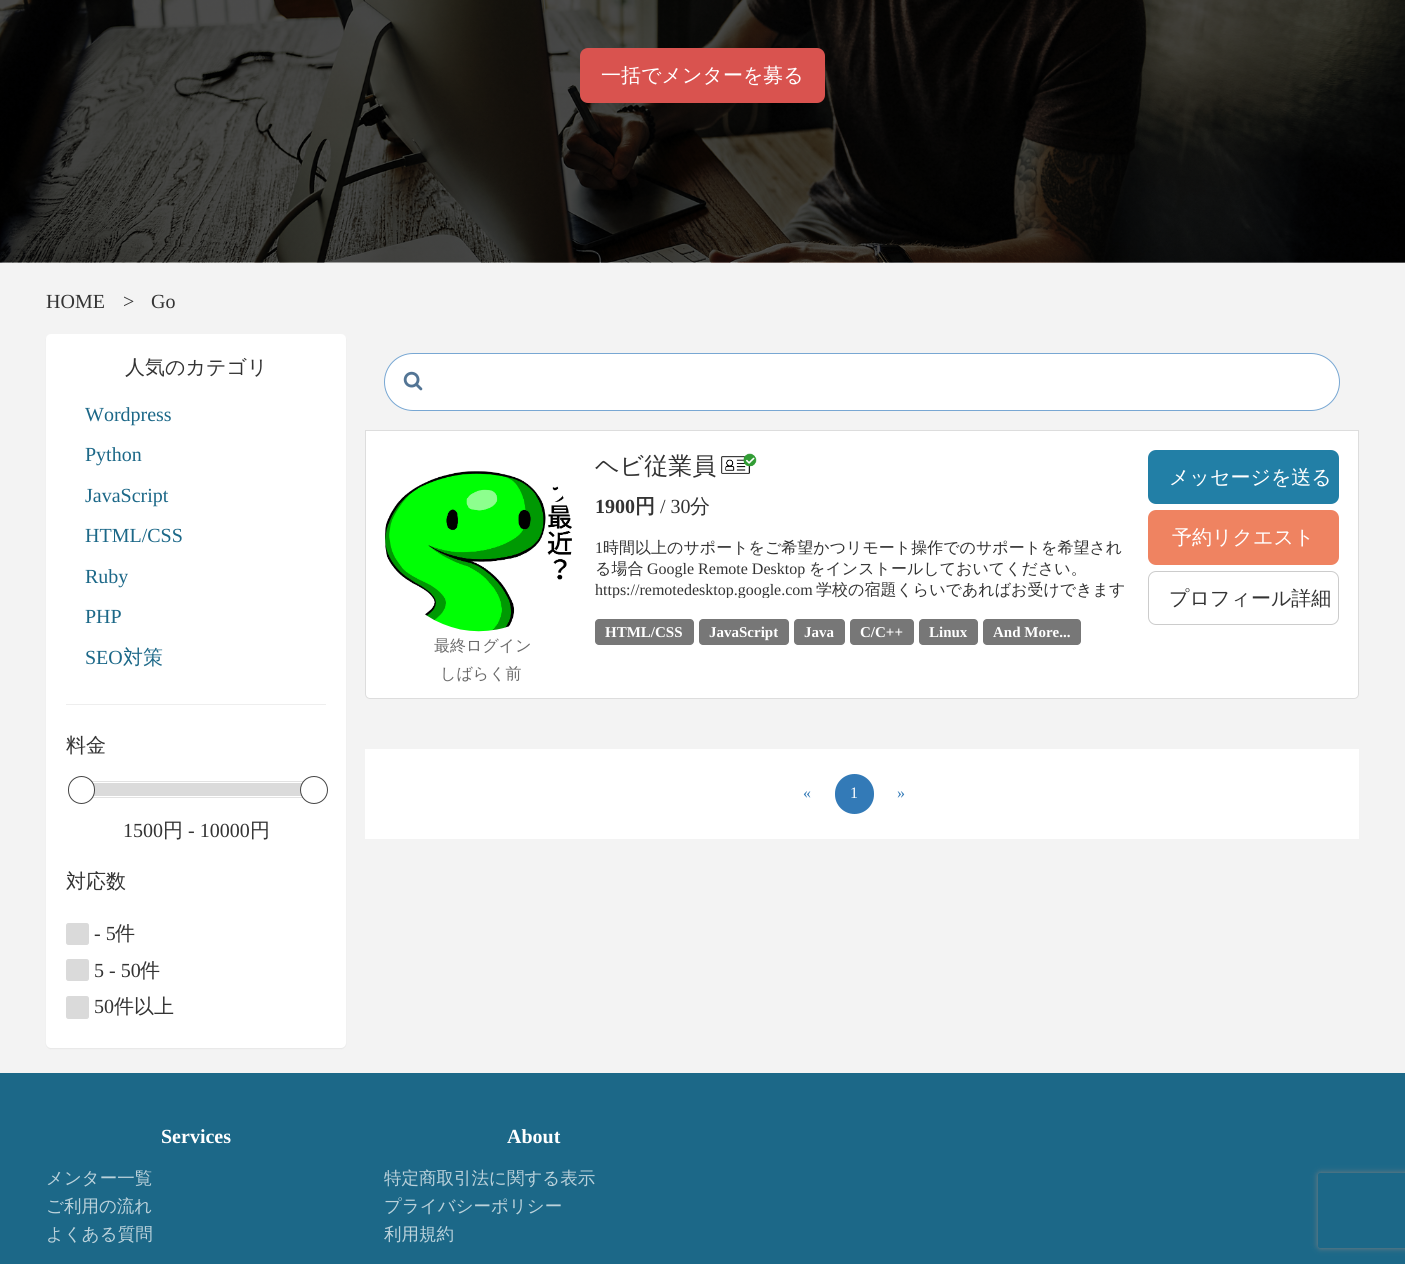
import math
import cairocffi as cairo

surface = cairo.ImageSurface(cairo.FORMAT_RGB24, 1405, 1264)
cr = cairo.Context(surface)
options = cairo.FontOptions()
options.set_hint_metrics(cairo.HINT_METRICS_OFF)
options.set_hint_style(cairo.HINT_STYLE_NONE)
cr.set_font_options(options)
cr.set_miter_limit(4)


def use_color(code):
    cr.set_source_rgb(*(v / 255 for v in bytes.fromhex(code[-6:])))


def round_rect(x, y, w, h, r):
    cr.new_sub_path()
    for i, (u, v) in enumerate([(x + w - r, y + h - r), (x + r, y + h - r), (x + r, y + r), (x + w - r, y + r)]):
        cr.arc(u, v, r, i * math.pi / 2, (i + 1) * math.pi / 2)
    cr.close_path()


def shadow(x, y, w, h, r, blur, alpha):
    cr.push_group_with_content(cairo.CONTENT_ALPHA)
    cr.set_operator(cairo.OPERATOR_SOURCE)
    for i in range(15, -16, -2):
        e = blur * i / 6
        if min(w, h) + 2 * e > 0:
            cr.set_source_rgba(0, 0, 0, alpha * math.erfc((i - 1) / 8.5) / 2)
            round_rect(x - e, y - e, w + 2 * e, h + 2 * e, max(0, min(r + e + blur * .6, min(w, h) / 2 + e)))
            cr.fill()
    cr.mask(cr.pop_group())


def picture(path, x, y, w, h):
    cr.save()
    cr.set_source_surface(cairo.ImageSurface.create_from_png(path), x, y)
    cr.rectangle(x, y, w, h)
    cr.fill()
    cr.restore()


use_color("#ffffff")
cr.paint()
picture("img1.png", 0, 0, 1405, 263)
use_color("#d9534f")
round_rect(580, 48, 245, 55, 8)
cr.fill()
cr.select_font_face("WenQuanYi Zen Hei Medium")
cr.set_font_size(20)
use_color("#ffffff")
cr.move_to(601, 82)
cr.show_text("一括でメンターを募る")
use_color("#f3f3f3")
cr.rectangle(0, 263, 1405, 810)
cr.fill()
cr.select_font_face("Liberation Serif")
use_color("#333333")
cr.move_to(46, 308)
cr.show_text("HOME")
cr.move_to(123, 308)
cr.show_text(">")
cr.move_to(151, 308)
cr.show_text("Go")
use_color("#000000")
shadow(46, 335, 300, 714, 5, 0.5, 0.05)
use_color("#ffffff")
round_rect(46, 334, 300, 714, 5)
cr.fill()
cr.select_font_face("WenQuanYi Zen Hei Medium")
use_color("#333333")
cr.move_to(125, 374)
cr.show_text("人気のカテゴリ")
cr.select_font_face("Liberation Serif")
use_color("#1c6888")
cr.move_to(85, 421)
cr.show_text("Wordpress")
cr.move_to(85, 461)
cr.show_text("Python")
cr.move_to(85, 502)
cr.show_text("JavaScript")
cr.move_to(85, 542)
cr.show_text("HTML/CSS")
cr.move_to(85, 583)
cr.show_text("Ruby")
cr.move_to(85, 623)
cr.show_text("PHP")
cr.move_to(85, 664)
cr.show_text("SEO")
cr.select_font_face("WenQuanYi Zen Hei Medium")
cr.move_to(123, 664)
cr.show_text("対策")
use_color("#eeeeee")
cr.rectangle(66, 704, 260, 1)
cr.fill()
use_color("#333333")
cr.move_to(66, 752)
cr.show_text("料金")
cr.rectangle(79.5, 781.5, 234, 16)
use_color("#e2e2e2")
cr.set_line_width(1)
cr.stroke()
use_color("#dbdbdb")
cr.rectangle(93, 783, 209, 13)
cr.fill()
use_color("#ffffff")
round_rect(68.5, 776.5, 26, 27, 13)
cr.fill_preserve()
use_color("#454545")
cr.stroke()
use_color("#ffffff")
cr.arc(314, 790, 13.5, 0, 2 * math.pi)
cr.fill_preserve()
use_color("#454545")
cr.stroke()
cr.select_font_face("Liberation Serif")
use_color("#333333")
cr.move_to(123, 837)
cr.show_text("1500")
cr.select_font_face("WenQuanYi Zen Hei Medium")
cr.move_to(163, 837)
cr.show_text("円")
cr.select_font_face("Liberation Serif")
cr.move_to(188, 837)
cr.show_text("- 10000")
cr.select_font_face("WenQuanYi Zen Hei Medium")
cr.move_to(250, 837)
cr.show_text("円")
cr.move_to(66, 888)
cr.show_text("対応数")
use_color("#dadada")
round_rect(66.5, 923.5, 22, 21, 2)
cr.fill_preserve()
cr.stroke()
cr.select_font_face("Liberation Serif")
use_color("#333333")
cr.move_to(94, 940)
cr.show_text("- 5")
cr.select_font_face("WenQuanYi Zen Hei Medium")
cr.move_to(115, 940)
cr.show_text("件")
use_color("#dadada")
round_rect(66.5, 959.5, 22, 21, 2)
cr.fill_preserve()
cr.stroke()
cr.select_font_face("Liberation Serif")
use_color("#333333")
cr.move_to(94, 977)
cr.show_text("5 - 50")
cr.select_font_face("WenQuanYi Zen Hei Medium")
cr.move_to(140, 977)
cr.show_text("件")
use_color("#dadada")
round_rect(66.5, 996.5, 22, 22, 2)
cr.fill_preserve()
cr.stroke()
cr.select_font_face("Liberation Serif")
use_color("#333333")
cr.move_to(94, 1013)
cr.show_text("50")
cr.select_font_face("WenQuanYi Zen Hei Medium")
cr.move_to(114, 1013)
cr.show_text("件以上")
use_color("#ffffff")
round_rect(384.5, 353.5, 955, 57, 28.5)
cr.fill_preserve()
use_color("#78a7d3")
cr.stroke()
picture("img2.png", 403, 371, 20, 20)
use_color("#ffffff")
cr.new_path()
cr.move_to(365.5, 430.5)
cr.line_to(1358.5, 430.5)
cr.line_to(1358.5, 694)
cr.curve_to(1358.5, 696.5, 1356.5, 698.5, 1354, 698.5)
cr.line_to(370, 698.5)
cr.curve_to(367.5, 698.5, 365.5, 696.5, 365.5, 694)
cr.close_path()
cr.fill_preserve()
use_color("#dddddd")
cr.stroke()
cr.set_font_size(24)
use_color("#333333")
cr.move_to(595, 474)
cr.show_text("ヘビ従業員")
picture("img3.png", 721, 453, 36, 21)
cr.select_font_face("Liberation Serif", cairo.FONT_SLANT_NORMAL, cairo.FONT_WEIGHT_BOLD)
cr.set_font_size(20)
cr.move_to(595, 513)
cr.show_text("1900")
cr.select_font_face("WenQuanYi Zen Hei", cairo.FONT_SLANT_NORMAL, cairo.FONT_WEIGHT_BOLD)
cr.move_to(635, 513)
cr.show_text("円")
cr.select_font_face("Liberation Serif")
cr.move_to(660, 513)
cr.show_text("/ 30")
cr.select_font_face("WenQuanYi Zen Hei Medium")
cr.move_to(690, 513)
cr.show_text("分")
cr.select_font_face("Liberation Serif")
cr.set_font_size(16)
cr.move_to(595, 553)
cr.show_text("1")
cr.select_font_face("WenQuanYi Zen Hei Medium")
cr.move_to(603, 553)
cr.show_text("時間以上のサポートをご希望かつリモート操作でのサポートを希望され")
cr.move_to(595, 574)
cr.show_text("る場合")
cr.select_font_face("Liberation Serif")
cr.move_to(647, 574)
cr.show_text("Google Remote Desktop")
cr.select_font_face("WenQuanYi Zen Hei Medium")
cr.move_to(809, 574)
cr.show_text("をインストールしておいてください。")
cr.save()
cr.rectangle(595, 538, 534, 60)
cr.clip()
cr.select_font_face("Liberation Serif")
cr.move_to(595, 595)
cr.show_text("https://remotedesktop.google.com")
cr.restore()
cr.move_to(816, 595)
cr.show_text("学校の宿題くらいであればお受けできます")
use_color("#777777")
round_rect(595, 619, 99, 26, 4)
cr.fill()
cr.select_font_face("Liberation Serif", cairo.FONT_SLANT_NORMAL, cairo.FONT_WEIGHT_BOLD)
cr.set_font_size(15)
use_color("#ffffff")
cr.move_to(605, 637)
cr.show_text("HTML/CSS")
use_color("#777777")
round_rect(699, 619, 90, 26, 4)
cr.fill()
use_color("#ffffff")
cr.move_to(709, 637)
cr.show_text("JavaScript")
use_color("#777777")
round_rect(794, 619, 51, 26, 4)
cr.fill()
use_color("#ffffff")
cr.move_to(804, 637)
cr.show_text("Java")
use_color("#777777")
round_rect(850, 619, 64, 26, 4)
cr.fill()
use_color("#ffffff")
cr.move_to(860, 637)
cr.show_text("C/C++")
use_color("#777777")
round_rect(919, 619, 59, 26, 4)
cr.fill()
use_color("#ffffff")
cr.move_to(929, 637)
cr.show_text("Linux")
use_color("#777777")
round_rect(983, 619, 98, 26, 4)
cr.fill()
use_color("#ffffff")
cr.move_to(993, 637)
cr.show_text("And More...")
picture("img4.png", 385, 471, 187, 161)
cr.select_font_face("WenQuanYi Zen Hei Medium")
cr.set_font_size(16)
use_color("#6a6a6a")
cr.move_to(434, 651)
cr.show_text("最終ログイン")
cr.move_to(440, 679)
cr.show_text("しばらく前")
use_color("#227fa6")
round_rect(1148, 450, 191, 54, 8)
cr.fill()
cr.set_font_size(20)
use_color("#ffffff")
cr.move_to(1169, 484)
cr.show_text("メッセージを送る")
use_color("#ef8361")
round_rect(1148, 510, 191, 55, 8)
cr.fill()
use_color("#ffffff")
cr.move_to(1172, 544)
cr.show_text("予約リクエスト")
round_rect(1148.5, 571.5, 190, 53, 7.5)
use_color("#cccccc")
cr.stroke()
use_color("#333333")
cr.move_to(1169, 605)
cr.show_text("プロフィール詳細")
use_color("#ffffff")
cr.rectangle(365, 749, 994, 90)
cr.fill()
cr.select_font_face("Liberation Serif")
cr.set_font_size(16)
use_color("#337ab7")
cr.move_to(803, 798)
cr.show_text("«")
round_rect(835, 774, 39, 40, 19.5)
cr.fill()
use_color("#ffffff")
cr.move_to(850, 798)
cr.show_text("1")
use_color("#337ab7")
cr.move_to(897, 798)
cr.show_text("»")
use_color("#1c6888")
cr.rectangle(0, 1073, 1405, 191)
cr.fill()
cr.select_font_face("Liberation Serif", cairo.FONT_SLANT_NORMAL, cairo.FONT_WEIGHT_BOLD)
cr.set_font_size(20)
use_color("#ffffff")
cr.move_to(161, 1143)
cr.show_text("Services")
cr.select_font_face("WenQuanYi Zen Hei Medium")
cr.set_font_size(17.5)
use_color("#bbd2db")
cr.move_to(46, 1184)
cr.show_text("メンター一覧")
cr.move_to(46, 1212)
cr.show_text("ご利用の流れ")
cr.move_to(46, 1240)
cr.show_text("よくある質問")
cr.select_font_face("Liberation Serif", cairo.FONT_SLANT_NORMAL, cairo.FONT_WEIGHT_BOLD)
cr.set_font_size(20)
use_color("#ffffff")
cr.move_to(507, 1143)
cr.show_text("About")
cr.select_font_face("WenQuanYi Zen Hei Medium")
cr.set_font_size(17.5)
use_color("#bbd2db")
cr.move_to(384, 1184)
cr.show_text("特定商取引法に関する表示")
cr.move_to(384, 1212)
cr.show_text("プライバシーポリシー")
cr.move_to(384, 1240)
cr.show_text("利用規約")
cr.save()
cr.set_fill_rule(cairo.FILL_RULE_EVEN_ODD)
cr.new_path()
cr.move_to(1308, 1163)
cr.line_to(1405, 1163)
cr.line_to(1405, 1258)
cr.line_to(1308, 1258)
cr.close_path()
cr.move_to(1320.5, 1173)
cr.line_to(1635.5, 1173)
cr.curve_to(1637, 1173, 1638, 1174, 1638, 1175.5)
cr.line_to(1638, 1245.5)
cr.curve_to(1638, 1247, 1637, 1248, 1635.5, 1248)
cr.line_to(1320.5, 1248)
cr.curve_to(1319, 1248, 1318, 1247, 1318, 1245.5)
cr.line_to(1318, 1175.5)
cr.curve_to(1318, 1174, 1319, 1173, 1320.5, 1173)
cr.close_path()
cr.clip()
use_color("#808080")
shadow(1318, 1173, 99, 75, 2.5, 3, 1)
cr.restore()
surface.write_to_png("result.png")
